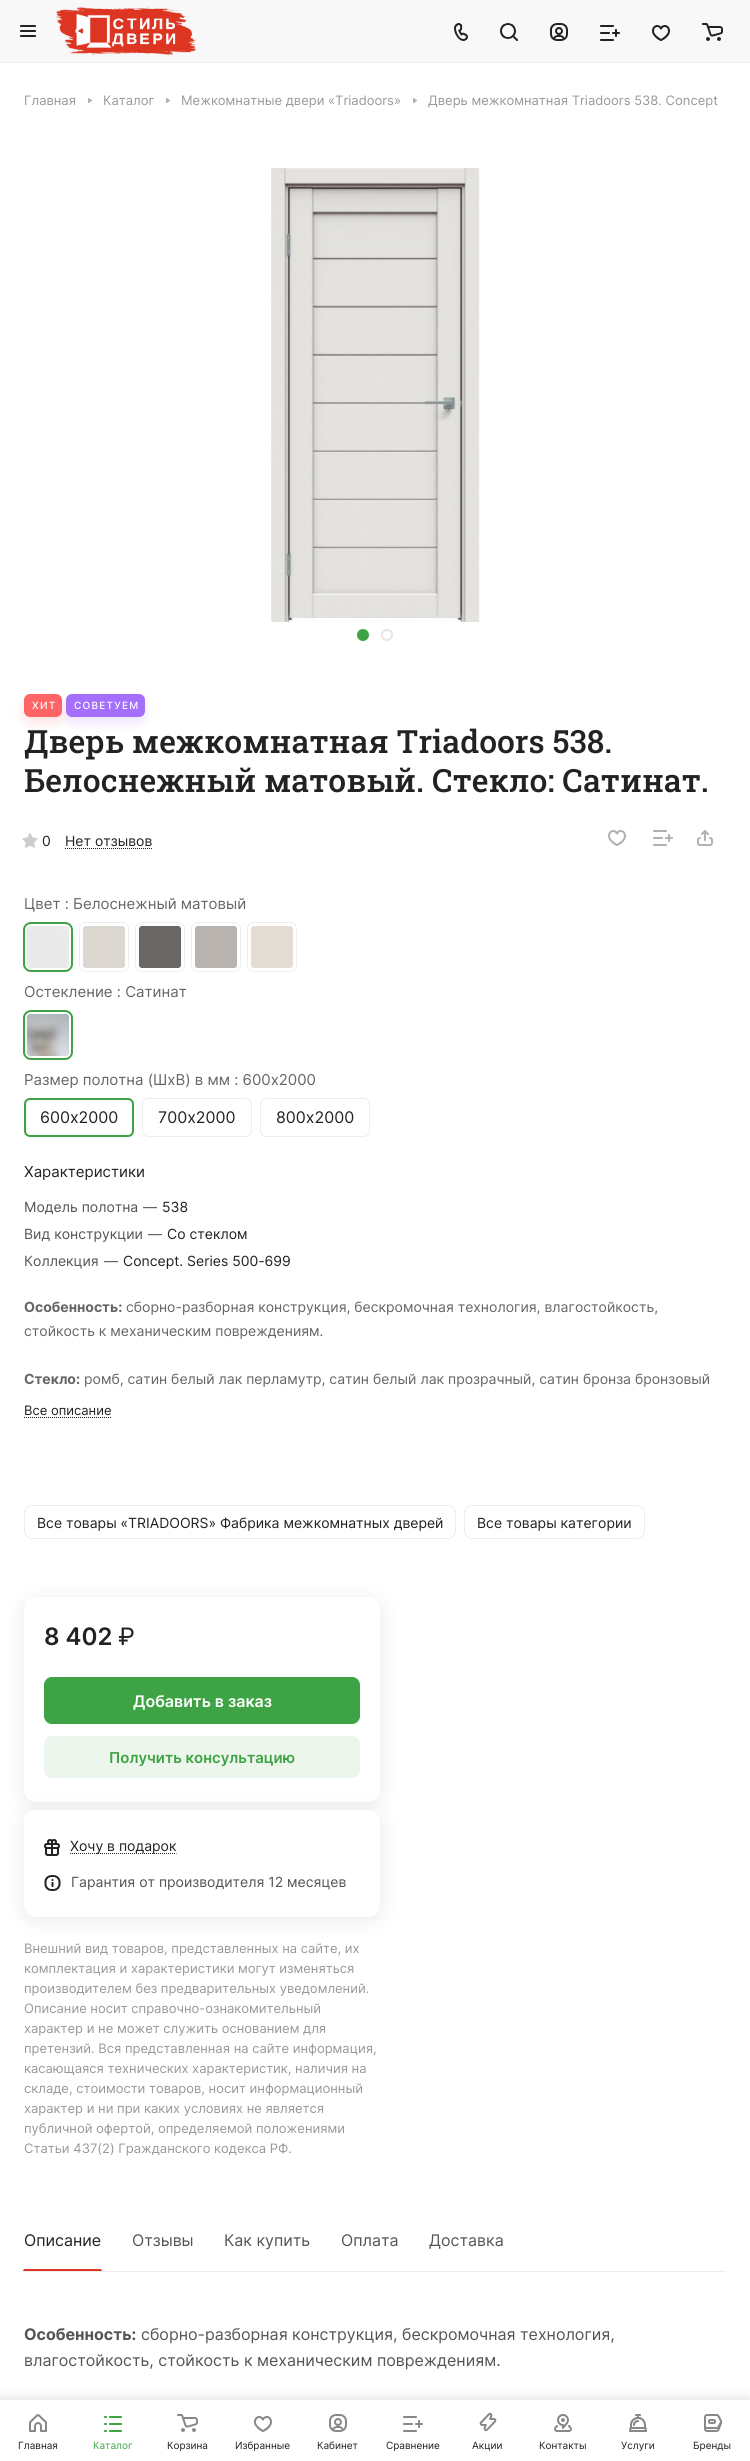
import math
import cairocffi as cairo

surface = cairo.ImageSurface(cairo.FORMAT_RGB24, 750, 2461)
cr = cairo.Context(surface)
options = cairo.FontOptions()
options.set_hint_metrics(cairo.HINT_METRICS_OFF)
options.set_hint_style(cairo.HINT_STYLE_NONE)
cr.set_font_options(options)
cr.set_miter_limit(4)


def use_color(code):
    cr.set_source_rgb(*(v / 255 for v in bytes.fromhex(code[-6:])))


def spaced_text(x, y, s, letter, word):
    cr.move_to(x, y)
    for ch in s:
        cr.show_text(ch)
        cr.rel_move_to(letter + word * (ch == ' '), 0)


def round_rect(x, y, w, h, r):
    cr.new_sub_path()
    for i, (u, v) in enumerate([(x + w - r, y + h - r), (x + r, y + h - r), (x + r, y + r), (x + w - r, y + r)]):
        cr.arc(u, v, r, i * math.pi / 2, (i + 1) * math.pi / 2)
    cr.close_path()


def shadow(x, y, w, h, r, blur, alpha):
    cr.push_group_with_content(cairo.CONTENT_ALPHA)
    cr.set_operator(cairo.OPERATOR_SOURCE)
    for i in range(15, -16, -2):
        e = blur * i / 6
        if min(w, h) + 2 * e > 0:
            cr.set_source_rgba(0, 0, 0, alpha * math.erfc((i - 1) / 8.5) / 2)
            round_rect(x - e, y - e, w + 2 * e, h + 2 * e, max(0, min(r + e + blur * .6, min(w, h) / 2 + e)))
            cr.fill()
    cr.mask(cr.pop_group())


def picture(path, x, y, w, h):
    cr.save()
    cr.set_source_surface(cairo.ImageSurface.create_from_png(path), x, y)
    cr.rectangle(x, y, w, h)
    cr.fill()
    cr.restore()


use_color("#ffffff")
cr.paint()
use_color("#ededed")
cr.rectangle(0, 62, 750, 1)
cr.fill()
use_color("#f8f8f8")
cr.rectangle(0, 0, 750, 62)
cr.fill()
picture("img1.png", 20, 25, 16, 12)
picture("img2.png", 56, 7, 140, 48)
picture("img3.png", 454, 23, 14, 18)
picture("img4.png", 500, 23, 18, 18)
picture("img5.png", 550, 23, 18, 18)
picture("img6.png", 600, 25, 20, 16)
picture("img7.png", 652, 25, 18, 16)
picture("img8.png", 702, 23, 21, 18)
cr.select_font_face("Inter")
cr.set_font_size(13)
use_color("#999999")
cr.move_to(24, 105)
cr.show_text("Главная")
picture("img9.png", 88, 98, 4, 5)
cr.move_to(103, 105)
cr.show_text("Каталог")
picture("img9.png", 166, 98, 4, 5)
cr.move_to(181, 105)
cr.show_text("Межкомнатные двери «Triadoors»")
picture("img9.png", 413, 98, 4, 5)
cr.move_to(428, 105)
cr.show_text("Дверь межкомнатная Triadoors 538. Concept")
picture("img10.png", 271, 168, 209, 454)
use_color("#3ea344")
cr.arc(363, 635, 6, 0, 2 * math.pi)
cr.fill()
use_color("#e6e6e6")
cr.arc(387, 635, 6, 0, 2 * math.pi)
cr.fill()
use_color("#ffffff")
cr.arc(387, 635, 4, 0, 2 * math.pi)
cr.fill()
use_color("#ff6565")
round_rect(24, 694, 38, 23, 6)
cr.fill()
use_color("#a56ffd")
round_rect(66, 694, 79, 23, 6)
cr.fill()
cr.save()
cr.set_fill_rule(cairo.FILL_RULE_EVEN_ODD)
cr.new_path()
cr.move_to(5, 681)
cr.line_to(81, 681)
cr.line_to(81, 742)
cr.line_to(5, 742)
cr.close_path()
cr.move_to(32, 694)
cr.line_to(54, 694)
cr.curve_to(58.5, 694, 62, 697.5, 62, 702)
cr.line_to(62, 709)
cr.curve_to(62, 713.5, 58.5, 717, 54, 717)
cr.line_to(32, 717)
cr.curve_to(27.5, 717, 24, 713.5, 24, 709)
cr.line_to(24, 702)
cr.curve_to(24, 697.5, 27.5, 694, 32, 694)
cr.close_path()
cr.clip()
use_color("#ff6565")
shadow(24, 700, 38, 23, 8, 6, 0.2)
cr.restore()
cr.select_font_face("Inter Medium")
cr.set_font_size(10)
use_color("#ffffff")
spaced_text(32, 709, "ХИТ", 1.25, 0)
cr.save()
cr.set_fill_rule(cairo.FILL_RULE_EVEN_ODD)
cr.new_path()
cr.move_to(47, 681)
cr.line_to(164, 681)
cr.line_to(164, 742)
cr.line_to(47, 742)
cr.close_path()
cr.move_to(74, 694)
cr.line_to(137, 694)
cr.curve_to(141.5, 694, 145, 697.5, 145, 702)
cr.line_to(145, 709)
cr.curve_to(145, 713.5, 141.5, 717, 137, 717)
cr.line_to(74, 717)
cr.curve_to(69.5, 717, 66, 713.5, 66, 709)
cr.line_to(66, 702)
cr.curve_to(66, 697.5, 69.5, 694, 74, 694)
cr.close_path()
cr.clip()
use_color("#a56ffd")
shadow(66, 700, 79, 23, 8, 6, 0.2)
cr.restore()
spaced_text(74, 709, "СОВЕТУЕМ", 1.25, 0)
cr.select_font_face("Roboto Slab Medium")
cr.set_font_size(32)
use_color("#222222")
cr.move_to(24, 753)
cr.show_text("Дверь межкомнатная Triadoors 538.")
cr.move_to(24, 792)
cr.show_text("Белоснежный матовый. Стекло: Сатинат.")
picture("img11.png", 22, 833, 16, 15)
cr.select_font_face("Inter")
cr.set_font_size(14)
cr.move_to(42, 846)
cr.show_text("0")
cr.move_to(65, 846)
cr.show_text("Нет отзывов")
cr.new_path()
cr.move_to(65, 848.5)
cr.line_to(152, 848.5)
cr.set_line_width(1)
cr.set_dash([1, 1])
cr.stroke()
picture("img12.png", 608, 830, 18, 16)
picture("img13.png", 653, 830, 20, 16)
picture("img14.png", 697, 830, 16, 16)
cr.set_font_size(15)
use_color("#666666")
cr.move_to(24, 909)
cr.show_text("Цвет : Белоснежный матовый")
picture("img15.png", 27, 926, 42, 42)
round_rect(25.5, 924.5, 45, 45, 4.5)
use_color("#ffffff")
cr.set_line_width(3)
cr.set_dash([])
cr.stroke()
round_rect(24, 923, 48, 48, 7)
use_color("#3ea344")
cr.set_line_width(2)
cr.stroke()
round_rect(79.5, 922.5, 49, 49, 6.5)
use_color("#ededed")
cr.set_line_width(1)
cr.stroke()
use_color("#dcd7d1")
cr.rectangle(83, 926, 42, 42)
cr.fill()
round_rect(81.5, 924.5, 45, 45, 4.5)
use_color("#ffffff")
cr.set_line_width(3)
cr.stroke()
round_rect(135.5, 922.5, 49, 49, 6.5)
use_color("#ededed")
cr.set_line_width(1)
cr.stroke()
use_color("#686765")
cr.rectangle(139, 926, 42, 42)
cr.fill()
round_rect(137.5, 924.5, 45, 45, 4.5)
use_color("#ffffff")
cr.set_line_width(3)
cr.stroke()
round_rect(191.5, 922.5, 49, 49, 6.5)
use_color("#ededed")
cr.set_line_width(1)
cr.stroke()
use_color("#b9b4af")
cr.rectangle(195, 926, 42, 42)
cr.fill()
round_rect(193.5, 924.5, 45, 45, 4.5)
use_color("#ffffff")
cr.set_line_width(3)
cr.stroke()
round_rect(247.5, 922.5, 49, 49, 6.5)
use_color("#ededed")
cr.set_line_width(1)
cr.stroke()
use_color("#e3dcd4")
cr.rectangle(251, 926, 42, 42)
cr.fill()
round_rect(249.5, 924.5, 45, 45, 4.5)
use_color("#ffffff")
cr.set_line_width(3)
cr.stroke()
use_color("#666666")
cr.move_to(24, 997)
cr.show_text("Остекление : Сатинат")
picture("img16.png", 27, 1014, 45, 42)
round_rect(25.5, 1012.5, 45, 45, 4.5)
use_color("#ffffff")
cr.stroke()
round_rect(24, 1011, 48, 48, 7)
use_color("#3ea344")
cr.set_line_width(2)
cr.stroke()
use_color("#666666")
cr.move_to(24, 1085)
cr.show_text("Размер полотна (ШхВ) в мм : 600х2000")
round_rect(25, 1099, 108, 37, 5)
use_color("#3ea344")
cr.stroke()
cr.set_font_size(16)
use_color("#222222")
cr.move_to(40, 1123)
cr.show_text("600х2000")
round_rect(142.5, 1098.5, 109, 38, 5.5)
use_color("#ededed")
cr.set_line_width(1)
cr.stroke()
use_color("#222222")
cr.move_to(158, 1123)
cr.show_text("700х2000")
round_rect(260.5, 1098.5, 109, 38, 5.5)
use_color("#ededed")
cr.stroke()
use_color("#222222")
cr.move_to(276, 1123)
cr.show_text("800х2000")
cr.set_font_size(15)
cr.move_to(24, 1177)
cr.show_text("Характеристики")
cr.set_font_size(14)
use_color("#555555")
cr.move_to(24, 1212)
cr.show_text("Модель полотна")
cr.move_to(143, 1212)
cr.show_text("—")
use_color("#222222")
cr.move_to(162, 1212)
cr.show_text("538")
use_color("#555555")
cr.move_to(24, 1239)
cr.show_text("Вид конструкции")
cr.move_to(148, 1239)
cr.show_text("—")
use_color("#222222")
cr.move_to(167, 1239)
cr.show_text("Со стеклом")
use_color("#555555")
cr.move_to(24, 1266)
cr.show_text("Коллекция")
cr.move_to(104, 1266)
cr.show_text("—")
use_color("#222222")
cr.move_to(123, 1266)
cr.show_text("Concept. Series 500-699")
cr.select_font_face("Inter", cairo.FONT_SLANT_NORMAL, cairo.FONT_WEIGHT_BOLD)
use_color("#666666")
cr.move_to(24, 1312)
cr.show_text("Особенность:")
cr.select_font_face("Inter")
cr.move_to(126, 1312)
cr.show_text("cборно-разборная конструкция, бескромочная технология, влагостойкость,")
cr.move_to(24, 1336)
cr.show_text("стойкость к механическим повреждениям.")
cr.select_font_face("Inter", cairo.FONT_SLANT_NORMAL, cairo.FONT_WEIGHT_BOLD)
cr.move_to(24, 1384)
cr.show_text("Стекло:")
cr.select_font_face("Inter")
cr.move_to(84, 1384)
cr.show_text("ромб, cатин белый лак перламутр, cатин белый лак прозрачный, cатин бронза бронзовый")
cr.set_font_size(13)
use_color("#222222")
cr.move_to(24, 1415)
cr.show_text("Все описание")
cr.new_path()
cr.move_to(24, 1417.5)
cr.line_to(111.5, 1417.5)
cr.set_dash([1, 1])
cr.stroke()
round_rect(24.5, 1505.5, 431, 33, 7.5)
use_color("#ededed")
cr.set_dash([])
cr.stroke()
cr.set_font_size(14)
use_color("#222222")
cr.move_to(37, 1528)
cr.show_text("Все товары «TRIADOORS» Фабрика межкомнатных дверей")
round_rect(464.5, 1505.5, 180, 33, 7.5)
use_color("#ededed")
cr.stroke()
use_color("#222222")
cr.move_to(477, 1528)
cr.show_text("Все товары категории")
use_color("#222222")
shadow(24, 1600, 356, 205, 12, 10, 0.1)
use_color("#ffffff")
round_rect(24, 1597, 356, 205, 12)
cr.fill()
cr.select_font_face("Inter SemiBold")
cr.set_font_size(24)
use_color("#222222")
cr.move_to(44, 1645)
cr.show_text("8 402")
cr.select_font_face("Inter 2")
cr.move_to(118, 1645)
cr.show_text("₽")
use_color("#3ea344")
round_rect(44.5, 1677.5, 315, 46, 7.5)
cr.fill_preserve()
cr.stroke()
cr.select_font_face("Inter SemiBold")
cr.set_font_size(16)
use_color("#ffffff")
cr.move_to(133, 1707)
cr.show_text("Добавить в заказ")
use_color("#ecf6ec")
round_rect(44, 1736, 316, 42, 8)
cr.fill()
cr.set_font_size(15)
use_color("#3ea344")
cr.move_to(109, 1763)
cr.show_text("Получить консультацию")
use_color("#222222")
shadow(24, 1813, 356, 107, 12, 10, 0.1)
use_color("#ffffff")
round_rect(24, 1810, 356, 107, 12)
cr.fill()
picture("img17.png", 44, 1839, 16, 17)
cr.new_path()
cr.move_to(70, 1853.5)
cr.line_to(176.5, 1853.5)
use_color("#222222")
cr.set_dash([1, 1])
cr.stroke()
cr.select_font_face("Inter")
cr.set_font_size(14)
cr.move_to(70, 1851)
cr.show_text("Хочу в подарок")
picture("img18.png", 44, 1875, 17, 16)
use_color("#555555")
cr.move_to(71, 1887)
cr.show_text("Гарантия от производителя 12 месяцев")
cr.set_font_size(13)
use_color("#999999")
cr.move_to(24, 1953)
cr.show_text("Внешний вид товаров, представленных на сайте, их")
cr.move_to(24, 1973)
cr.show_text("комплектация и характеристики могут изменяться")
cr.move_to(24, 1993)
cr.show_text("производителем без предварительных уведомлений.")
cr.move_to(24, 2013)
cr.show_text("Описание носит справочно-ознакомительный")
cr.move_to(24, 2033)
cr.show_text("характер и не может служить основанием для")
cr.move_to(24, 2053)
cr.show_text("претензий. Вся представленная на сайте информация,")
cr.move_to(24, 2073)
cr.show_text("касающаяся технических характеристик, наличия на")
cr.move_to(24, 2093)
cr.show_text("складе, стоимости товаров, носит информационный")
cr.move_to(24, 2113)
cr.show_text("характер и ни при каких условиях не является")
cr.move_to(24, 2133)
cr.show_text("публичной офертой, определяемой положениями")
cr.move_to(24, 2153)
cr.show_text("Статьи 437(2) Гражданского кодекса РФ.")
use_color("#ededed")
cr.rectangle(24, 2271, 702, 1)
cr.fill()
cr.set_font_size(16)
use_color("#222222")
cr.move_to(24, 2246)
cr.show_text("Описание")
use_color("#dc3522")
cr.new_path()
cr.move_to(25, 2269)
cr.line_to(100, 2269)
cr.curve_to(101, 2269, 102, 2270, 102, 2271)
cr.line_to(23, 2271)
cr.curve_to(23, 2270, 24, 2269, 25, 2269)
cr.close_path()
cr.fill()
use_color("#555555")
cr.move_to(132, 2246)
cr.show_text("Отзывы")
cr.move_to(224, 2246)
cr.show_text("Как купить")
cr.move_to(341, 2246)
cr.show_text("Оплата")
cr.move_to(429, 2246)
cr.show_text("Доставка")
cr.select_font_face("Inter", cairo.FONT_SLANT_NORMAL, cairo.FONT_WEIGHT_BOLD)
cr.move_to(24, 2340)
cr.show_text("Особенность:")
cr.select_font_face("Inter")
cr.move_to(141, 2340)
cr.show_text("cборно-разборная конструкция, бескромочная технология,")
cr.move_to(24, 2366)
cr.show_text("влагостойкость, стойкость к механическим повреждениям.")
use_color("#000000")
shadow(0, 2397, 750, 61, 0, 5, 0.1)
use_color("#ffffff")
cr.rectangle(0, 2400, 750, 61)
cr.fill()
picture("img19.png", 29, 2414, 18, 18)
cr.set_font_size(10)
use_color("#222222")
cr.move_to(18, 2449)
cr.show_text("Главная")
picture("img20.png", 104, 2416, 18, 16)
use_color("#3ea344")
cr.move_to(93, 2449)
cr.show_text("Каталог")
picture("img21.png", 177, 2414, 21, 18)
use_color("#222222")
cr.move_to(167, 2449)
cr.show_text("Корзина")
picture("img22.png", 254, 2416, 18, 16)
cr.move_to(235, 2449)
cr.show_text("Избранные")
picture("img23.png", 329, 2414, 18, 18)
cr.move_to(317, 2449)
cr.show_text("Кабинет")
picture("img24.png", 403, 2416, 20, 16)
cr.move_to(386, 2449)
cr.show_text("Сравнение")
picture("img25.png", 479, 2412, 18, 20)
cr.move_to(472, 2449)
cr.show_text("Акции")
picture("img26.png", 554, 2414, 18, 18)
cr.move_to(539, 2449)
cr.show_text("Контакты")
picture("img27.png", 629, 2414, 18, 18)
cr.move_to(621, 2449)
cr.show_text("Услуги")
picture("img28.png", 704, 2414, 18, 18)
cr.move_to(693, 2449)
cr.show_text("Бренды")
surface.write_to_png("result.png")
